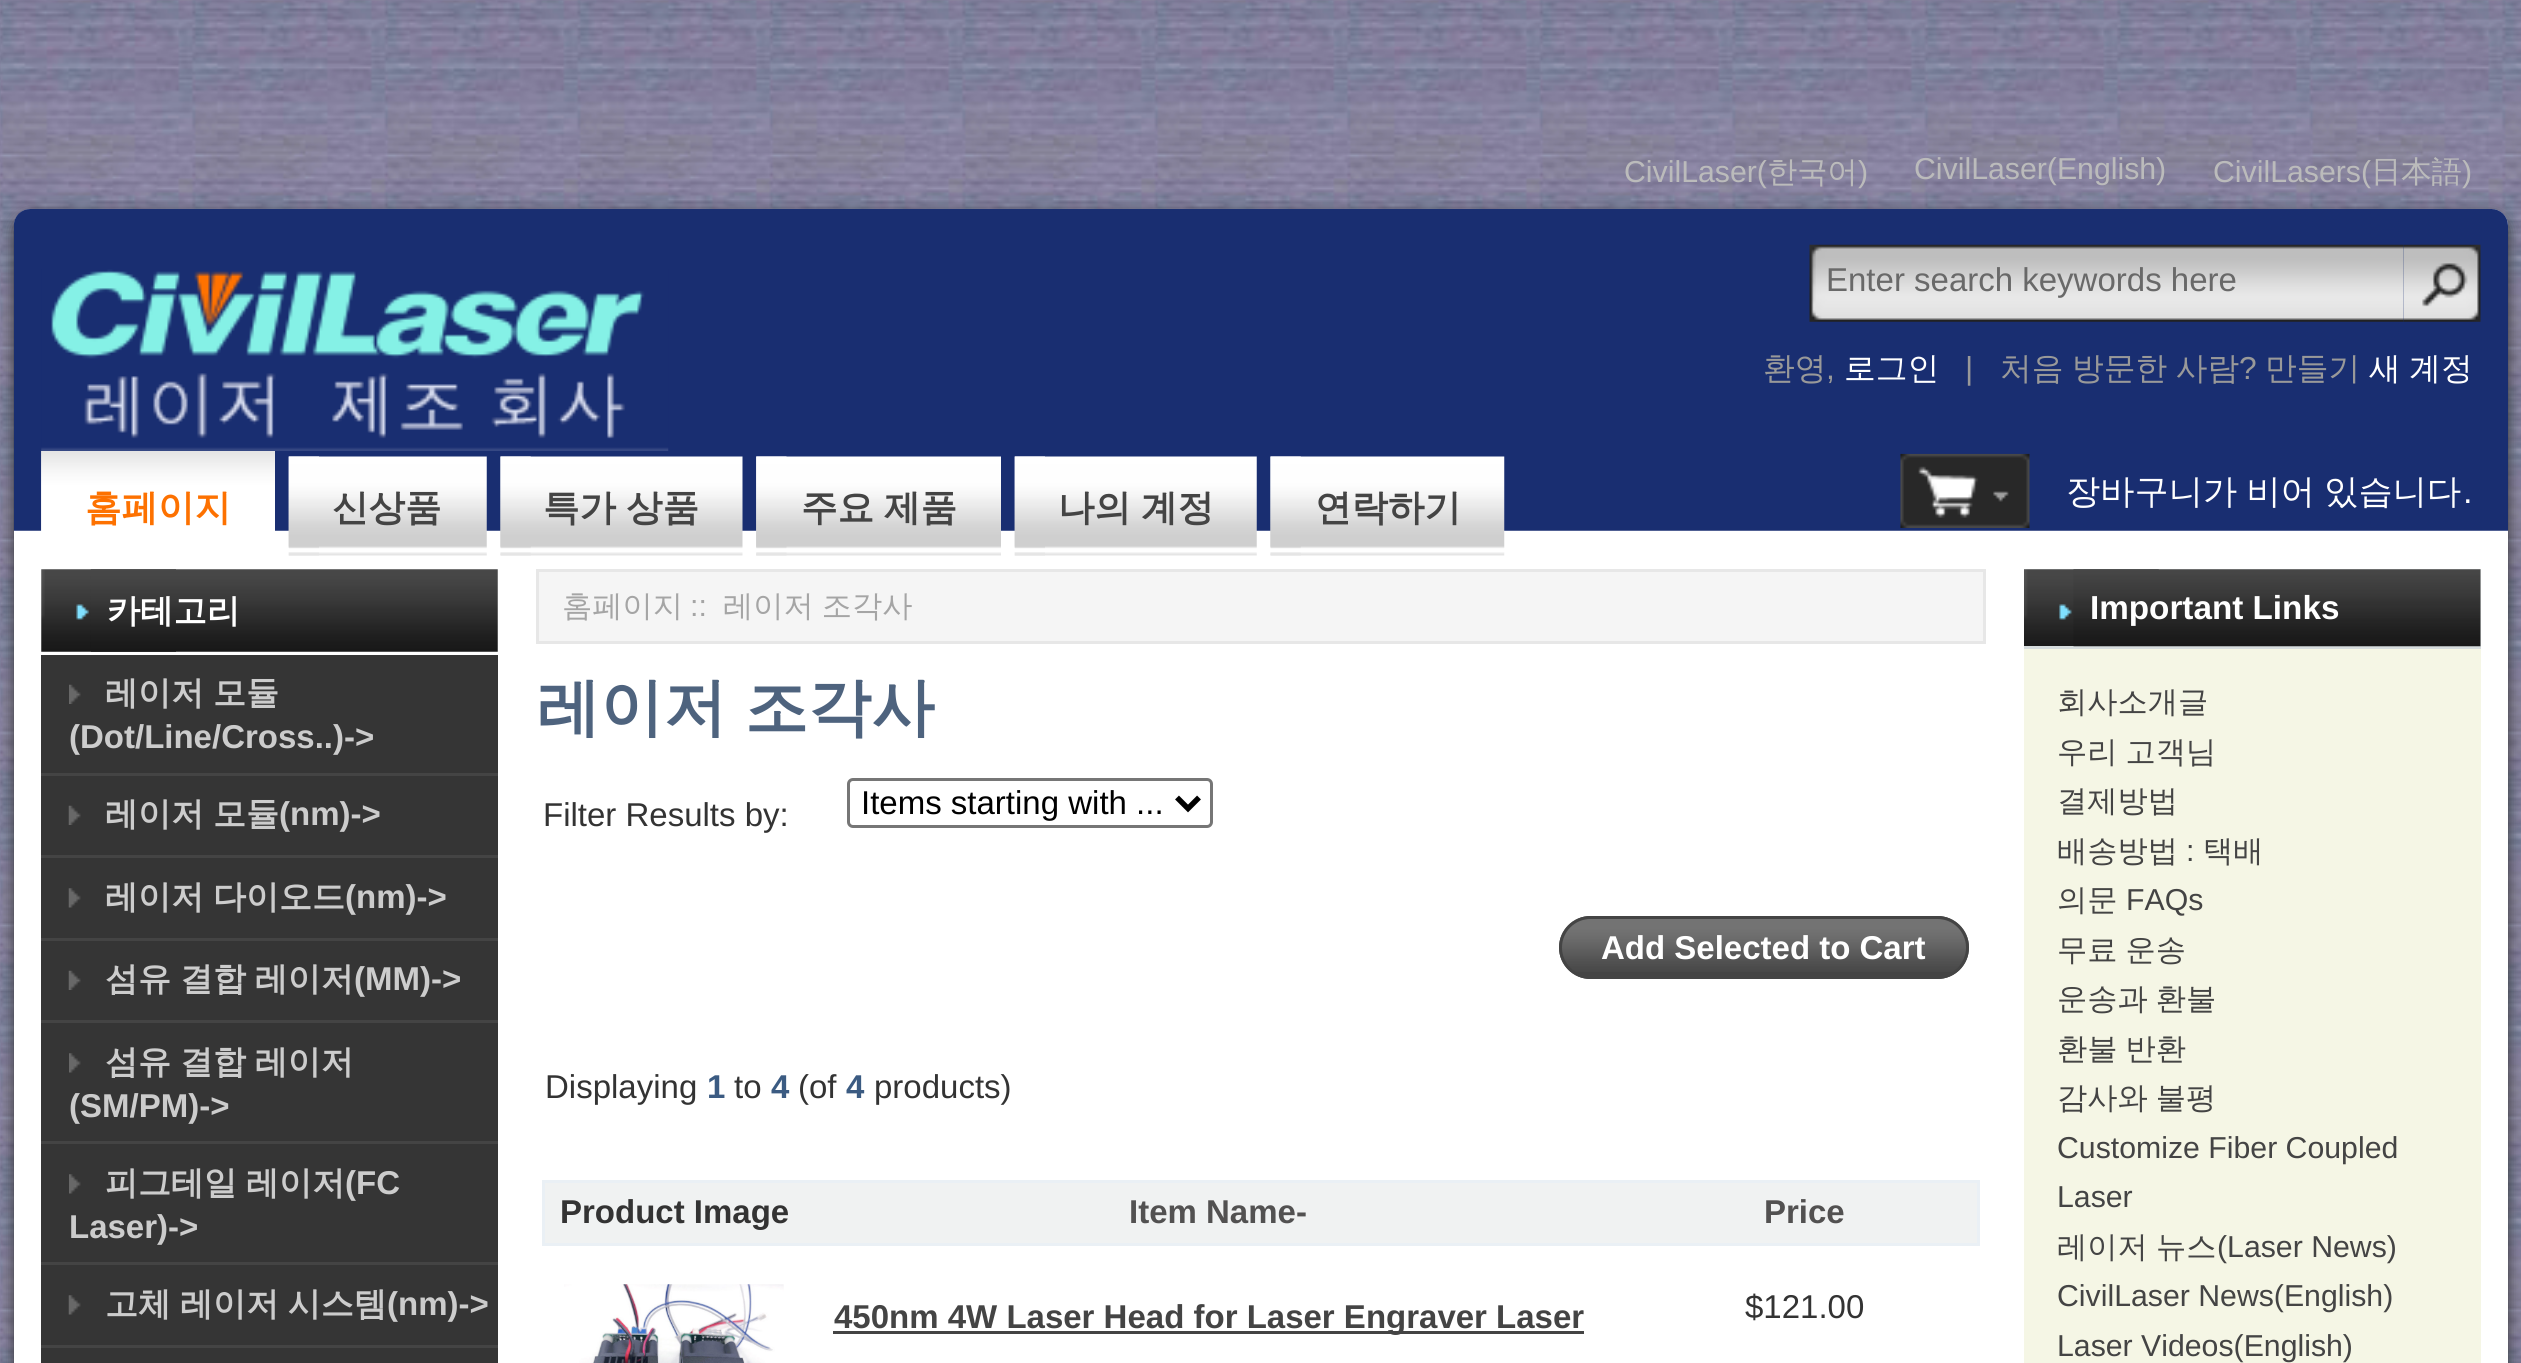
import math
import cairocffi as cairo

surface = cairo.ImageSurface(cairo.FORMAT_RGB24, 2521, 1363)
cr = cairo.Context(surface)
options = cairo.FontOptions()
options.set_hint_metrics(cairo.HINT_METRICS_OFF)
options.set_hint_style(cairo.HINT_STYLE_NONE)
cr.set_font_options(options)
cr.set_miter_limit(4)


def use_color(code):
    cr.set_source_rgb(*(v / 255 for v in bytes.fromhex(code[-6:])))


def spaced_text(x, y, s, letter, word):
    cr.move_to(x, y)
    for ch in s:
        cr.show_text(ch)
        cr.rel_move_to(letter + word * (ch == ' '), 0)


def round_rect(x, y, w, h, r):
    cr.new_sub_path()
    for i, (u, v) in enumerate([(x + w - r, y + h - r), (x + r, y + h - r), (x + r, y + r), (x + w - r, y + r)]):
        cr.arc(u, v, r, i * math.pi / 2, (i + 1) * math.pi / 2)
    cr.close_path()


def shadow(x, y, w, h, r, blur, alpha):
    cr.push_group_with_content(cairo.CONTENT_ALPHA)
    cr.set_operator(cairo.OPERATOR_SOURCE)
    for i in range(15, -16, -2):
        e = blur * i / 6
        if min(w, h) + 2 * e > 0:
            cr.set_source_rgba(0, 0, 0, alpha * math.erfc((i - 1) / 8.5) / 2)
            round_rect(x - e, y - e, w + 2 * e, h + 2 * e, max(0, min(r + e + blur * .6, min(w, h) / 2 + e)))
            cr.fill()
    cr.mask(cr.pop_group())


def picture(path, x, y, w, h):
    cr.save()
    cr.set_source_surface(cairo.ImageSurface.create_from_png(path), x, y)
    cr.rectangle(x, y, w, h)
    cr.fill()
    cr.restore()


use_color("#ffffff")
cr.paint()
picture("img1.png", 0, 0, 2521, 1363)
cr.select_font_face("Liberation Sans")
cr.set_font_size(30.25)
use_color("#bbbbbb")
cr.move_to(1624, 182)
cr.show_text("CivilLaser(")
cr.select_font_face("WenQuanYi Zen Hei Medium")
cr.move_to(1767, 182)
cr.show_text("한국어")
cr.select_font_face("Liberation Sans")
cr.move_to(1858, 182)
cr.show_text(")")
cr.move_to(1914, 179)
cr.show_text("CivilLaser(English)")
cr.move_to(2213, 182)
cr.show_text("CivilLasers(")
cr.select_font_face("WenQuanYi Zen Hei Medium")
cr.move_to(2371, 182)
cr.show_text("日本語")
cr.select_font_face("Liberation Sans")
cr.move_to(2462, 182)
cr.show_text(")")
use_color("#333333")
shadow(14, 215, 2494, 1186, 17, 7, 1)
use_color("#ffffff")
cr.new_path()
cr.move_to(31, 209)
cr.line_to(2491, 209)
cr.curve_to(2500.5, 209, 2508, 216.5, 2508, 226)
cr.line_to(2508, 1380)
cr.line_to(14, 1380)
cr.line_to(14, 226)
cr.curve_to(14, 216.5, 21.5, 209, 31, 209)
cr.close_path()
cr.fill()
picture("img2.png", 13, 209, 2495, 322)
picture("img3.png", 1809, 244, 595, 78)
cr.set_font_size(33)
use_color("#696969")
cr.move_to(1826, 291)
cr.show_text("Enter search keywords here")
picture("img4.png", 2403, 244, 78, 78)
cr.select_font_face("WenQuanYi Zen Hei Medium")
cr.set_font_size(31.75)
use_color("#999999")
cr.move_to(1763, 379)
cr.show_text("환영")
cr.select_font_face("Liberation Sans")
cr.move_to(1826, 379)
cr.show_text(",")
cr.select_font_face("WenQuanYi Zen Hei Medium")
use_color("#ffffff")
cr.move_to(1844, 379)
cr.show_text("로그인")
cr.select_font_face("Liberation Sans")
use_color("#999999")
cr.move_to(1965, 379)
cr.show_text("|")
cr.select_font_face("WenQuanYi Zen Hei Medium")
spaced_text(2000, 379, "처음 방문한 사람", 0, -1)
cr.select_font_face("Liberation Sans")
cr.move_to(2239, 379)
cr.show_text("?")
cr.select_font_face("WenQuanYi Zen Hei Medium")
cr.move_to(2265, 379)
cr.show_text("만들기")
use_color("#ffffff")
spaced_text(2369, 379, "새 계정", 0, -1)
picture("img5.png", 41, 451, 1, 80)
picture("img6.png", 41, 451, 234, 80)
cr.select_font_face("WenQuanYi Zen Hei", cairo.FONT_SLANT_NORMAL, cairo.FONT_WEIGHT_BOLD)
cr.set_font_size(36.5)
use_color("#fd7100")
cr.move_to(85, 520)
cr.show_text("홈페이지")
picture("img7.png", 288, 456, 31, 100)
picture("img8.png", 288, 456, 199, 100)
use_color("#444444")
cr.move_to(332, 520)
cr.show_text("신상품")
picture("img9.png", 500, 456, 31, 100)
picture("img10.png", 500, 456, 243, 100)
spaced_text(543, 520, "특가 상품", 0, -1)
picture("img11.png", 756, 456, 31, 100)
picture("img12.png", 756, 456, 245, 100)
spaced_text(801, 520, "주요 제품", 0, -1)
picture("img7.png", 1014, 456, 31, 100)
picture("img13.png", 1014, 456, 243, 100)
spaced_text(1058, 520, "나의 계정", 0, -1)
picture("img9.png", 1270, 456, 31, 100)
picture("img14.png", 1270, 456, 235, 100)
cr.move_to(1315, 520)
cr.show_text("연락하기")
picture("img15.png", 1900, 453, 130, 75)
cr.select_font_face("WenQuanYi Zen Hei Medium")
cr.set_font_size(34.25)
use_color("#ffffff")
spaced_text(2066, 503, "장바구니가 비어 있습니다", 0, -1)
cr.select_font_face("Liberation Sans")
cr.move_to(2463, 503)
cr.show_text(".")
picture("img16.png", 41, 269, 628, 182)
picture("img17.png", 41, 569, 135, 83)
picture("img18.png", 90, 569, 408, 83)
cr.select_font_face("WenQuanYi Zen Hei", cairo.FONT_SLANT_NORMAL, cairo.FONT_WEIGHT_BOLD)
cr.set_font_size(33.25)
cr.move_to(107, 622)
cr.show_text("카테고리")
use_color("#353535")
cr.rectangle(41, 655, 457, 708)
cr.fill()
picture("img19.png", 69, 684, 12, 20)
cr.set_font_size(33)
use_color("#cccccc")
spaced_text(105, 704, "레이저 모듈", 0, -1)
cr.select_font_face("Liberation Sans", cairo.FONT_SLANT_NORMAL, cairo.FONT_WEIGHT_BOLD)
cr.move_to(69, 748)
cr.show_text("(Dot/Line/Cross..)->")
use_color("#444444")
cr.rectangle(41, 773, 457, 3)
cr.fill()
picture("img20.png", 68, 805, 13, 20)
cr.select_font_face("WenQuanYi Zen Hei", cairo.FONT_SLANT_NORMAL, cairo.FONT_WEIGHT_BOLD)
use_color("#cccccc")
spaced_text(105, 825, "레이저 모듈", 0, -1)
cr.select_font_face("Liberation Sans", cairo.FONT_SLANT_NORMAL, cairo.FONT_WEIGHT_BOLD)
cr.move_to(279, 825)
cr.show_text("(nm)->")
use_color("#444444")
cr.rectangle(41, 855, 457, 3)
cr.fill()
picture("img21.png", 68, 888, 13, 20)
cr.select_font_face("WenQuanYi Zen Hei", cairo.FONT_SLANT_NORMAL, cairo.FONT_WEIGHT_BOLD)
use_color("#cccccc")
spaced_text(105, 908, "레이저 다이오드", 0, -1)
cr.select_font_face("Liberation Sans", cairo.FONT_SLANT_NORMAL, cairo.FONT_WEIGHT_BOLD)
cr.move_to(345, 908)
cr.show_text("(nm)->")
use_color("#444444")
cr.rectangle(41, 938, 457, 3)
cr.fill()
picture("img20.png", 68, 970, 13, 20)
cr.select_font_face("WenQuanYi Zen Hei", cairo.FONT_SLANT_NORMAL, cairo.FONT_WEIGHT_BOLD)
use_color("#cccccc")
spaced_text(105, 990, "섬유 결합 레이저", 0, -1)
cr.select_font_face("Liberation Sans", cairo.FONT_SLANT_NORMAL, cairo.FONT_WEIGHT_BOLD)
cr.move_to(354, 990)
cr.show_text("(MM)->")
use_color("#444444")
cr.rectangle(41, 1020, 457, 3)
cr.fill()
picture("img22.png", 69, 1053, 12, 20)
cr.select_font_face("WenQuanYi Zen Hei", cairo.FONT_SLANT_NORMAL, cairo.FONT_WEIGHT_BOLD)
use_color("#cccccc")
spaced_text(105, 1073, "섬유 결합 레이저", 0, -1)
cr.select_font_face("Liberation Sans", cairo.FONT_SLANT_NORMAL, cairo.FONT_WEIGHT_BOLD)
cr.move_to(69, 1117)
cr.show_text("(SM/PM)->")
use_color("#444444")
cr.rectangle(41, 1141, 457, 3)
cr.fill()
picture("img22.png", 69, 1174, 12, 20)
cr.select_font_face("WenQuanYi Zen Hei", cairo.FONT_SLANT_NORMAL, cairo.FONT_WEIGHT_BOLD)
use_color("#cccccc")
spaced_text(105, 1194, "피그테일 레이저", 0, -1)
cr.select_font_face("Liberation Sans", cairo.FONT_SLANT_NORMAL, cairo.FONT_WEIGHT_BOLD)
cr.move_to(345, 1194)
cr.show_text("(FC")
cr.move_to(69, 1238)
cr.show_text("Laser)->")
use_color("#444444")
cr.rectangle(41, 1262, 457, 3)
cr.fill()
picture("img21.png", 68, 1295, 13, 20)
cr.select_font_face("WenQuanYi Zen Hei", cairo.FONT_SLANT_NORMAL, cairo.FONT_WEIGHT_BOLD)
use_color("#cccccc")
spaced_text(105, 1315, "고체 레이저 시스템", 0, -1)
cr.select_font_face("Liberation Sans", cairo.FONT_SLANT_NORMAL, cairo.FONT_WEIGHT_BOLD)
cr.move_to(387, 1315)
cr.show_text("(nm)->")
use_color("#444444")
cr.rectangle(41, 1345, 457, 3)
cr.fill()
use_color("#f5f5f5")
cr.rectangle(537.5, 570.5, 1447, 72)
cr.fill_preserve()
use_color("#e7e7e7")
cr.set_line_width(3)
cr.stroke()
cr.select_font_face("WenQuanYi Zen Hei Medium")
cr.set_font_size(30.25)
use_color("#a5a5a5")
cr.move_to(562, 616)
cr.show_text("홈페이지")
cr.select_font_face("Liberation Sans")
cr.move_to(690, 616)
cr.show_text("::")
cr.select_font_face("WenQuanYi Zen Hei Medium")
spaced_text(723, 616, "레이저 조각사", 0, -1)
cr.select_font_face("WenQuanYi Zen Hei", cairo.FONT_SLANT_NORMAL, cairo.FONT_WEIGHT_BOLD)
cr.set_font_size(63.25)
use_color("#4e637e")
spaced_text(537, 729, "레이저 조각사", 0, -1)
cr.select_font_face("Liberation Sans")
cr.set_font_size(33)
use_color("#333333")
cr.move_to(543, 826)
cr.show_text("Filter Results by:")
round_rect(848.5, 779.5, 363, 47, 4.5)
use_color("#767676")
cr.stroke()
cr.new_path()
cr.move_to(1177, 797.5)
cr.line_to(1188, 808.5)
cr.line_to(1199, 797.5)
use_color("#000000")
cr.set_line_width(5.5)
cr.stroke()
cr.move_to(861, 814)
cr.show_text("Items starting with ...")
use_color("#444444")
round_rect(1559, 916, 410, 63, 31.5)
cr.fill()
picture("img23.png", 1559, 918, 410, 54)
round_rect(1560.5, 917.5, 407, 60, 30)
cr.set_line_width(3)
cr.stroke()
cr.select_font_face("Liberation Sans", cairo.FONT_SLANT_NORMAL, cairo.FONT_WEIGHT_BOLD)
use_color("#ffffff")
cr.move_to(1601, 959)
cr.show_text("Add Selected to Cart")
cr.select_font_face("Liberation Sans")
use_color("#333333")
cr.move_to(545, 1098)
cr.show_text("Displaying")
cr.select_font_face("Liberation Sans", cairo.FONT_SLANT_NORMAL, cairo.FONT_WEIGHT_BOLD)
use_color("#3b5b82")
cr.move_to(707, 1098)
cr.show_text("1")
cr.select_font_face("Liberation Sans")
use_color("#333333")
cr.move_to(734, 1098)
cr.show_text("to")
cr.select_font_face("Liberation Sans", cairo.FONT_SLANT_NORMAL, cairo.FONT_WEIGHT_BOLD)
use_color("#3b5b82")
cr.move_to(771, 1098)
cr.show_text("4")
cr.select_font_face("Liberation Sans")
use_color("#333333")
cr.move_to(798, 1098)
cr.show_text("(of")
cr.select_font_face("Liberation Sans", cairo.FONT_SLANT_NORMAL, cairo.FONT_WEIGHT_BOLD)
use_color("#3b5b82")
cr.move_to(846, 1098)
cr.show_text("4")
cr.select_font_face("Liberation Sans")
use_color("#333333")
cr.move_to(874, 1098)
cr.show_text("products)")
use_color("#f0f2f2")
cr.rectangle(543.5, 1181.5, 1435, 63)
cr.fill_preserve()
use_color("#eaf0f5")
cr.stroke()
cr.select_font_face("Liberation Sans", cairo.FONT_SLANT_NORMAL, cairo.FONT_WEIGHT_BOLD)
use_color("#333333")
cr.move_to(560, 1223)
cr.show_text("Product Image")
use_color("#525151")
cr.move_to(1129, 1223)
cr.show_text("Item Name-")
cr.move_to(1764, 1223)
cr.show_text("Price")
picture("img24.png", 564, 1284, 220, 79)
use_color("#444444")
cr.rectangle(833, 1331, 751, 3)
cr.fill()
cr.move_to(834, 1328)
cr.show_text("450nm 4W Laser Head for Laser Engraver Laser")
cr.select_font_face("Liberation Sans")
use_color("#333333")
cr.move_to(1745, 1318)
cr.show_text("$121.00")
use_color("#e5e9e9")
cr.rectangle(2024, 569, 457, 77)
cr.fill()
picture("img25.png", 2024, 569, 135, 77)
use_color("#d6dcdd")
cr.rectangle(2024, 646, 457, 3)
cr.fill()
picture("img26.png", 2073, 569, 408, 78)
cr.select_font_face("Liberation Sans", cairo.FONT_SLANT_NORMAL, cairo.FONT_WEIGHT_BOLD)
cr.set_font_size(33.25)
use_color("#ffffff")
cr.move_to(2090, 619)
cr.show_text("Important Links")
use_color("#f5f6e5")
cr.rectangle(2024, 649, 457, 714)
cr.fill()
cr.select_font_face("WenQuanYi Zen Hei Medium")
cr.set_font_size(30.25)
use_color("#444444")
cr.move_to(2057, 712)
cr.show_text("회사소개글")
spaced_text(2057, 762, "우리 고객님", 0, -1)
cr.move_to(2057, 811)
cr.show_text("결제방법")
cr.move_to(2057, 861)
cr.show_text("배송방법")
cr.select_font_face("Liberation Sans")
cr.move_to(2186, 861)
cr.show_text(":")
cr.select_font_face("WenQuanYi Zen Hei Medium")
cr.move_to(2203, 861)
cr.show_text("택배")
cr.move_to(2057, 910)
cr.show_text("의문")
cr.select_font_face("Liberation Sans")
cr.move_to(2126, 910)
cr.show_text("FAQs")
cr.select_font_face("WenQuanYi Zen Hei Medium")
spaced_text(2057, 960, "무료 운송", 0, -1)
spaced_text(2057, 1009, "운송과 환불", 0, -1)
spaced_text(2057, 1059, "환불 반환", 0, -1)
spaced_text(2057, 1108, "감사와 불평", 0, -1)
cr.select_font_face("Liberation Sans")
cr.move_to(2057, 1158)
cr.show_text("Customize Fiber Coupled")
cr.move_to(2057, 1207)
cr.show_text("Laser")
cr.select_font_face("WenQuanYi Zen Hei Medium")
cr.move_to(2057, 1257)
cr.show_text("레이저")
cr.move_to(2156, 1257)
cr.show_text("뉴스")
cr.select_font_face("Liberation Sans")
cr.move_to(2217, 1257)
cr.show_text("(Laser News)")
cr.move_to(2057, 1306)
cr.show_text("CivilLaser News(English)")
cr.move_to(2057, 1356)
cr.show_text("Laser Videos(English)")
surface.write_to_png("result.png")
